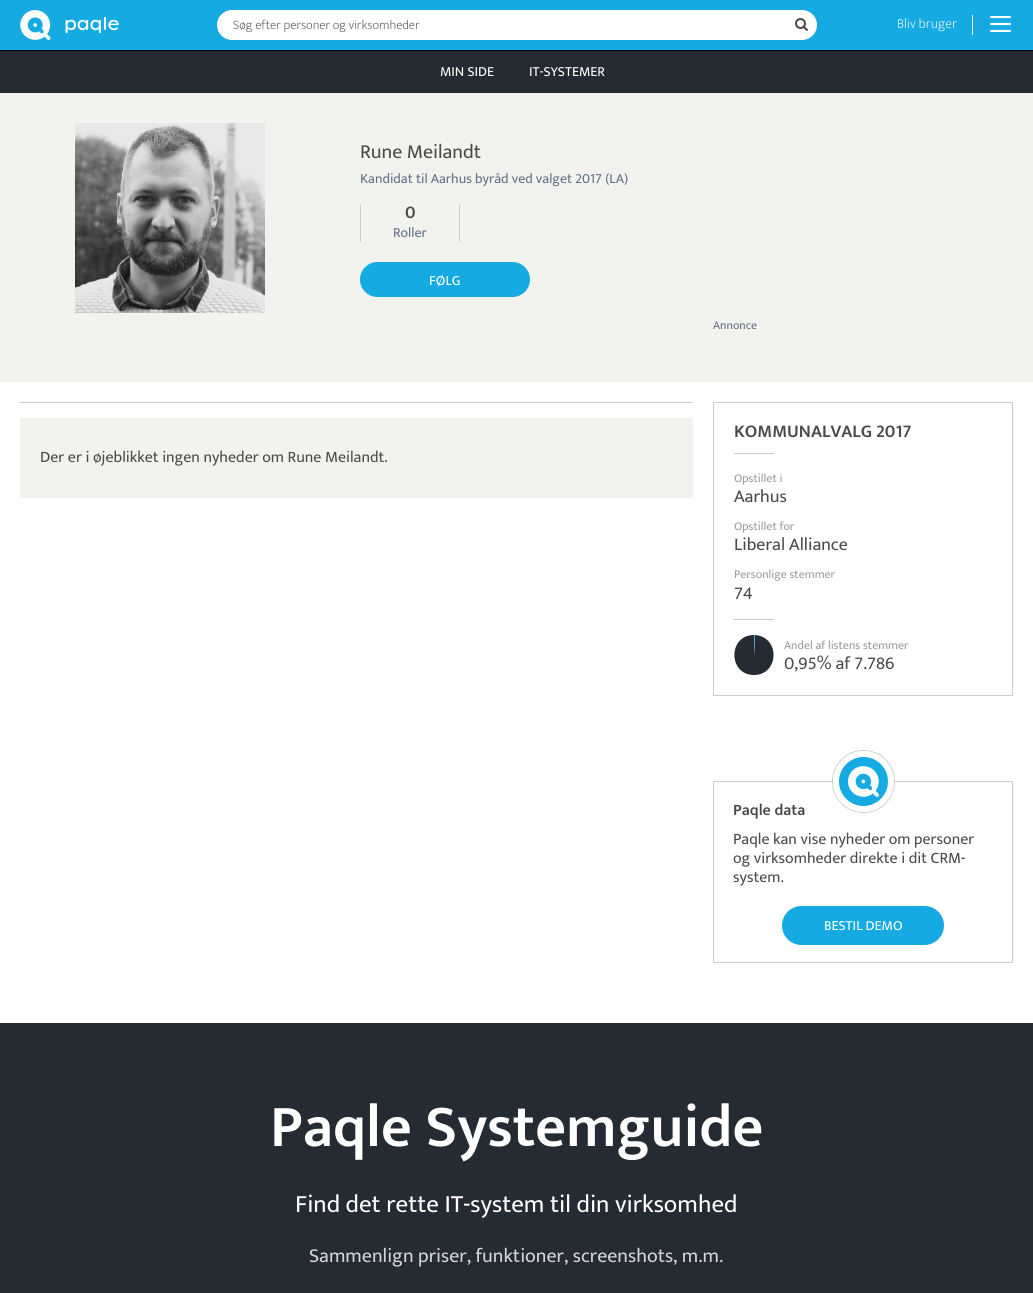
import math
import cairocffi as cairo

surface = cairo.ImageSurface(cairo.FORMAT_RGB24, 1033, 1293)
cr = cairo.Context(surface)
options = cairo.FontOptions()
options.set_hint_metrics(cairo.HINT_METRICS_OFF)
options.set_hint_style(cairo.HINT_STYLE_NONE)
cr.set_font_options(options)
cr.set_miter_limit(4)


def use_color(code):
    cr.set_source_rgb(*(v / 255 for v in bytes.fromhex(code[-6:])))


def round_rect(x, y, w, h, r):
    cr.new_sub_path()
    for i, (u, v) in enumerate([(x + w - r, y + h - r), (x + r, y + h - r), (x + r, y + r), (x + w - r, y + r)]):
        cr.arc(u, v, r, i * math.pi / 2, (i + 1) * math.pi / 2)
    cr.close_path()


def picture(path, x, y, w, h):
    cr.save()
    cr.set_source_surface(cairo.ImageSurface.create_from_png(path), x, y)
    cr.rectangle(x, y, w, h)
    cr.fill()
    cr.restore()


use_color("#252b33")
cr.paint()
use_color("#16aae2")
cr.rectangle(0, 0, 1033, 50)
cr.fill()
picture("img1.png", 20, 10, 99, 30)
use_color("#ffffff")
round_rect(217, 10, 600, 30, 15)
cr.fill()
cr.select_font_face("Mukta Vaani Light")
cr.set_font_size(13)
use_color("#4a4a4a")
cr.move_to(233, 29)
cr.show_text("Søg efter personer og virksomheder")
picture("img2.png", 795, 18, 13, 13)
cr.set_font_size(14)
use_color("#ffffff")
cr.move_to(897, 28)
cr.show_text("Bliv bruger")
cr.rectangle(972, 15, 1, 20)
cr.fill()
cr.save()
cr.rectangle(990, 16, 21, 16)
cr.clip()
cr.new_path()
cr.move_to(991, 24)
cr.line_to(1010, 24)
cr.move_to(991, 31)
cr.line_to(1010, 31)
cr.move_to(991, 17)
cr.line_to(1010, 17)
cr.set_line_width(2.1)
cr.set_line_cap(cairo.LINE_CAP_ROUND)
cr.stroke()
cr.restore()
use_color("#000000")
cr.rectangle(0, 50, 1033, 1)
cr.fill()
cr.select_font_face("Mukta Vaani")
use_color("#ffffff")
cr.move_to(440, 76)
cr.show_text("MIN SIDE")
cr.move_to(529, 76)
cr.show_text("IT-SYSTEMER")
use_color("#f2f2ee")
cr.rectangle(0, 93, 1033, 289)
cr.fill()
picture("img3.png", 75, 123, 190, 190)
cr.set_font_size(20)
use_color("#4a4a4a")
cr.move_to(360, 158)
cr.show_text("Rune Meilandt")
cr.set_font_size(14)
use_color("#617083")
cr.move_to(360, 183)
cr.show_text("Kandidat til Aarhus byråd ved valget 2017 (LA)")
use_color("#cdcdc7")
cr.rectangle(459, 204, 1, 38)
cr.fill()
cr.rectangle(360, 204, 1, 38)
cr.fill()
cr.select_font_face("Mukta Vaani SemiBold")
cr.set_font_size(18)
use_color("#4a4a4a")
cr.move_to(405, 218)
cr.show_text("0")
cr.select_font_face("Mukta Vaani")
cr.set_font_size(14)
use_color("#617083")
cr.move_to(393, 237)
cr.show_text("Roller")
use_color("#16aae2")
round_rect(360, 262, 170, 35, 17.5)
cr.fill()
use_color("#ffffff")
cr.move_to(429, 285)
cr.show_text("FØLG")
cr.set_font_size(12)
use_color("#617083")
cr.move_to(713, 329)
cr.show_text("Annonce")
use_color("#ffffff")
cr.rectangle(0, 382, 1033, 641)
cr.fill()
use_color("#cdcdc7")
cr.rectangle(20, 402, 673, 1)
cr.fill()
use_color("#f2f2ee")
cr.rectangle(20, 418, 673, 80)
cr.fill()
cr.set_font_size(16)
use_color("#4a4a4a")
cr.move_to(40, 462)
cr.show_text("Der er i øjeblikket ingen nyheder om Rune Meilandt.")
cr.rectangle(713.5, 402.5, 299, 293)
use_color("#cdcdc7")
cr.set_line_width(1)
cr.stroke()
cr.select_font_face("Mukta Vaani SemiBold")
cr.set_font_size(18)
use_color("#4a4a4a")
cr.move_to(734, 437)
cr.show_text("KOMMUNALVALG 2017")
use_color("#cdcdc7")
cr.rectangle(734, 453, 40, 1)
cr.fill()
cr.select_font_face("Mukta Vaani")
cr.set_font_size(12)
use_color("#9a9a9a")
cr.move_to(734, 482)
cr.show_text("Opstillet i")
cr.set_font_size(18)
use_color("#4a4a4a")
cr.move_to(734, 502)
cr.show_text("Aarhus")
cr.set_font_size(12)
use_color("#9a9a9a")
cr.move_to(734, 530)
cr.show_text("Opstillet for")
cr.set_font_size(18)
use_color("#4a4a4a")
cr.move_to(734, 550)
cr.show_text("Liberal Alliance")
cr.set_font_size(12)
use_color("#9a9a9a")
cr.move_to(734, 578)
cr.show_text("Personlige stemmer")
cr.set_font_size(18)
use_color("#4a4a4a")
cr.move_to(734, 599)
cr.show_text("74")
use_color("#cdcdc7")
cr.rectangle(734, 619, 40, 1)
cr.fill()
use_color("#252b33")
cr.new_path()
cr.move_to(755, 635)
cr.curve_to(781, 637, 779, 676, 753, 675)
cr.curve_to(728, 674, 728, 635, 754, 635)
cr.line_to(754, 655)
cr.fill()
use_color("#16aae2")
cr.new_path()
cr.move_to(754, 635)
cr.line_to(755, 635)
cr.line_to(754, 655)
cr.fill()
cr.set_font_size(12)
use_color("#9a9a9a")
cr.move_to(784, 649)
cr.show_text("Andel af listens stemmer")
cr.set_font_size(18)
use_color("#4a4a4a")
cr.move_to(784, 669)
cr.show_text("0,95% af 7.786")
cr.rectangle(713.5, 781.5, 299, 181)
use_color("#cdcdc7")
cr.stroke()
cr.select_font_face("Mukta Vaani SemiBold")
cr.set_font_size(16)
use_color("#4a4a4a")
cr.move_to(733, 815)
cr.show_text("Paqle data")
cr.new_path()
cr.arc(863.5, 781.5, 31, 0, 2 * math.pi)
use_color("#cdcdc7")
cr.stroke()
use_color("#ffffff")
cr.arc(863.5, 781.5, 30.5, 0, 2 * math.pi)
cr.fill()
use_color("#16aae2")
cr.arc(863.5, 781.5, 24.5, 0, 2 * math.pi)
cr.fill()
picture("img4.png", 848, 766, 31, 31)
cr.select_font_face("Mukta Vaani")
use_color("#4a4a4a")
cr.move_to(733, 844)
cr.show_text("Paqle kan vise nyheder om personer")
cr.move_to(733, 863)
cr.show_text("og virksomheder direkte i dit CRM-")
cr.move_to(733, 882)
cr.show_text("system.")
use_color("#16aae2")
round_rect(782, 906, 162, 39, 19.5)
cr.fill()
cr.set_font_size(14)
use_color("#ffffff")
cr.move_to(824, 930)
cr.show_text("BESTIL DEMO")
cr.select_font_face("Mukta Vaani SemiBold")
cr.set_font_size(60)
cr.move_to(270, 1146)
cr.show_text("Paqle Systemguide")
cr.select_font_face("Mukta Vaani")
cr.set_font_size(25)
cr.move_to(295, 1212)
cr.show_text("Find det rette IT-system til din virksomhed")
cr.set_font_size(20)
use_color("#d3d5d6")
cr.move_to(309, 1262)
cr.show_text("Sammenlign priser, funktioner, screenshots, m.m.")
surface.write_to_png("result.png")
